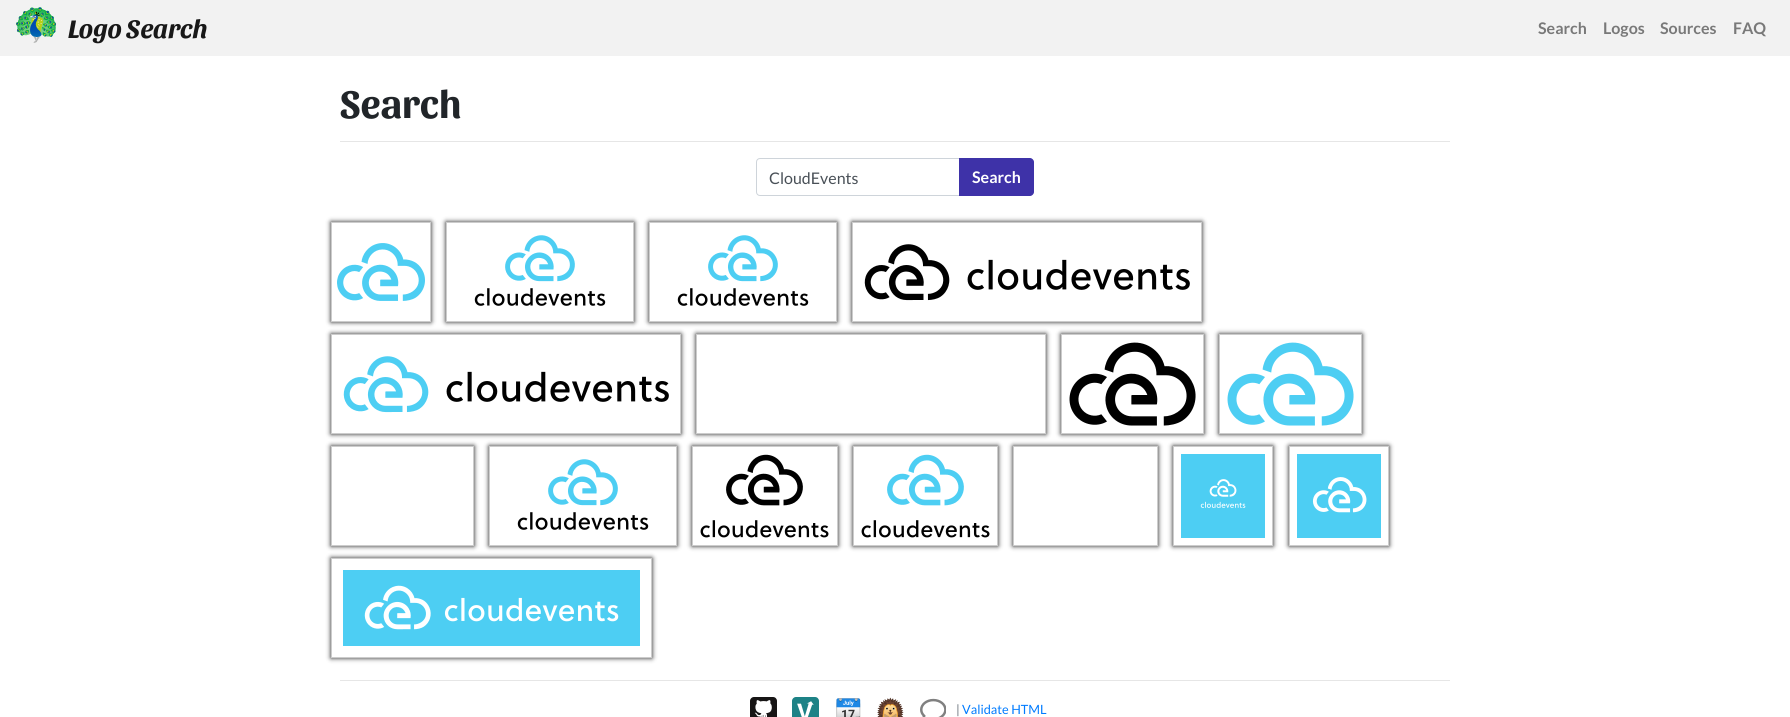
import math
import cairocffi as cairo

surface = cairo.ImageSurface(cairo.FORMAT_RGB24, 1790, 717)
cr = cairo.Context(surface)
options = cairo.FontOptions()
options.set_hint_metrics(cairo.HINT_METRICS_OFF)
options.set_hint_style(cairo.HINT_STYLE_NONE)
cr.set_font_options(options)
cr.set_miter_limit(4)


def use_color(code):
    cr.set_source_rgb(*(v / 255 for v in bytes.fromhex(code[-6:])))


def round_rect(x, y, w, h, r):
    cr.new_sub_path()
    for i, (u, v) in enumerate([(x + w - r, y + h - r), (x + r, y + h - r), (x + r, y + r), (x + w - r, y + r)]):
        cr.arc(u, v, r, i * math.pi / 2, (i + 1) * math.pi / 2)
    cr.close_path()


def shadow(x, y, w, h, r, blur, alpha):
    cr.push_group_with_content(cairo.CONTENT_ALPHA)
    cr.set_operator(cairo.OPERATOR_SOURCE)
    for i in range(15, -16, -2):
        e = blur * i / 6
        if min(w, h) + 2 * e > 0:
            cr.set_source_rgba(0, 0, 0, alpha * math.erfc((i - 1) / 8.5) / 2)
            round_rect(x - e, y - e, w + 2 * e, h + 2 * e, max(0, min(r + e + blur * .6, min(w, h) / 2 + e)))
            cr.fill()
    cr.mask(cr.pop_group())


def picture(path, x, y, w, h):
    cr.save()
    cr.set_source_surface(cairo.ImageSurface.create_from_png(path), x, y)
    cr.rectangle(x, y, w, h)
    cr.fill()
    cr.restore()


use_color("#ffffff")
cr.paint()
use_color("#f2f2f2")
cr.rectangle(0, 0, 1790, 56)
cr.fill()
picture("img1.png", 16, 7, 40, 36)
cr.select_font_face("Sansita", cairo.FONT_SLANT_ITALIC, cairo.FONT_WEIGHT_BOLD)
cr.set_font_size(26.5)
use_color("#181818")
cr.move_to(68, 38)
cr.show_text("Logo Search")
cr.select_font_face("Lato", cairo.FONT_SLANT_NORMAL, cairo.FONT_WEIGHT_BOLD)
cr.set_font_size(16)
use_color("#797979")
cr.move_to(1538, 34)
cr.show_text("Search")
cr.move_to(1603, 34)
cr.show_text("Logos")
cr.move_to(1660, 34)
cr.show_text("Sources")
cr.move_to(1733, 34)
cr.show_text("FAQ")
cr.select_font_face("Sansita", cairo.FONT_SLANT_NORMAL, cairo.FONT_WEIGHT_BOLD)
cr.set_font_size(40)
use_color("#212529")
cr.move_to(340, 118)
cr.show_text("Search")
use_color("#e6e6e6")
cr.rectangle(340, 141, 1110, 1)
cr.fill()
cr.new_path()
cr.move_to(760, 158.5)
cr.line_to(959.5, 158.5)
cr.line_to(959.5, 195.5)
cr.line_to(760, 195.5)
cr.curve_to(758, 195.5, 756.5, 194, 756.5, 192)
cr.line_to(756.5, 162)
cr.curve_to(756.5, 160, 758, 158.5, 760, 158.5)
cr.close_path()
use_color("#ced4da")
cr.set_line_width(1)
cr.stroke()
cr.select_font_face("Lato")
cr.set_font_size(16)
use_color("#495057")
cr.move_to(769, 184)
cr.show_text("CloudEvents")
use_color("#3e32a8")
cr.new_path()
cr.move_to(959, 158)
cr.line_to(1030, 158)
cr.curve_to(1032, 158, 1034, 160, 1034, 162)
cr.line_to(1034, 192)
cr.curve_to(1034, 194, 1032, 196, 1030, 196)
cr.line_to(959, 196)
cr.close_path()
cr.fill()
cr.select_font_face("Lato", cairo.FONT_SLANT_NORMAL, cairo.FONT_WEIGHT_BOLD)
use_color("#ffffff")
cr.move_to(972, 183)
cr.show_text("Search")
cr.save()
cr.set_fill_rule(cairo.FILL_RULE_EVEN_ODD)
cr.new_path()
cr.move_to(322, 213)
cr.line_to(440, 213)
cr.line_to(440, 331)
cr.line_to(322, 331)
cr.close_path()
cr.move_to(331, 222)
cr.line_to(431, 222)
cr.line_to(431, 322)
cr.line_to(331, 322)
cr.close_path()
cr.clip()
use_color("#1d1d1d")
shadow(331, 222, 100, 100, 0, 2.5, 1)
cr.restore()
cr.save()
cr.set_fill_rule(cairo.FILL_RULE_EVEN_ODD)
cr.new_path()
cr.move_to(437, 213)
cr.line_to(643, 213)
cr.line_to(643, 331)
cr.line_to(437, 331)
cr.close_path()
cr.move_to(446, 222)
cr.line_to(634, 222)
cr.line_to(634, 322)
cr.line_to(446, 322)
cr.close_path()
cr.clip()
use_color("#1d1d1d")
shadow(446, 222, 188, 100, 0, 2.5, 1)
cr.restore()
cr.save()
cr.set_fill_rule(cairo.FILL_RULE_EVEN_ODD)
cr.new_path()
cr.move_to(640, 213)
cr.line_to(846, 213)
cr.line_to(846, 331)
cr.line_to(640, 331)
cr.close_path()
cr.move_to(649, 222)
cr.line_to(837, 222)
cr.line_to(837, 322)
cr.line_to(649, 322)
cr.close_path()
cr.clip()
use_color("#1d1d1d")
shadow(649, 222, 188, 100, 0, 2.5, 1)
cr.restore()
cr.save()
cr.set_fill_rule(cairo.FILL_RULE_EVEN_ODD)
cr.new_path()
cr.move_to(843, 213)
cr.line_to(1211, 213)
cr.line_to(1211, 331)
cr.line_to(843, 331)
cr.close_path()
cr.move_to(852, 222)
cr.line_to(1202, 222)
cr.line_to(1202, 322)
cr.line_to(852, 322)
cr.close_path()
cr.clip()
use_color("#1d1d1d")
shadow(852, 222, 350, 100, 0, 2.5, 1)
cr.restore()
cr.rectangle(331.5, 222.5, 99, 99)
use_color("#cccccc")
cr.stroke()
cr.rectangle(446.5, 222.5, 187, 99)
cr.stroke()
cr.rectangle(649.5, 222.5, 187, 99)
cr.stroke()
cr.rectangle(852.5, 222.5, 349, 99)
cr.stroke()
picture("img2.png", 337, 243, 88, 58)
picture("img3.png", 474, 235, 132, 71)
picture("img4.png", 677, 235, 132, 71)
picture("img5.png", 864, 244, 326, 57)
cr.save()
cr.set_fill_rule(cairo.FILL_RULE_EVEN_ODD)
cr.new_path()
cr.move_to(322, 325)
cr.line_to(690, 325)
cr.line_to(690, 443)
cr.line_to(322, 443)
cr.close_path()
cr.move_to(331, 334)
cr.line_to(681, 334)
cr.line_to(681, 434)
cr.line_to(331, 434)
cr.close_path()
cr.clip()
use_color("#1d1d1d")
shadow(331, 334, 350, 100, 0, 2.5, 1)
cr.restore()
cr.save()
cr.set_fill_rule(cairo.FILL_RULE_EVEN_ODD)
cr.new_path()
cr.move_to(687, 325)
cr.line_to(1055, 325)
cr.line_to(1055, 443)
cr.line_to(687, 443)
cr.close_path()
cr.move_to(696, 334)
cr.line_to(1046, 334)
cr.line_to(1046, 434)
cr.line_to(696, 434)
cr.close_path()
cr.clip()
use_color("#1d1d1d")
shadow(696, 334, 350, 100, 0, 2.5, 1)
cr.restore()
cr.save()
cr.set_fill_rule(cairo.FILL_RULE_EVEN_ODD)
cr.new_path()
cr.move_to(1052, 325)
cr.line_to(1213, 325)
cr.line_to(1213, 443)
cr.line_to(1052, 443)
cr.close_path()
cr.move_to(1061, 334)
cr.line_to(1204, 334)
cr.line_to(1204, 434)
cr.line_to(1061, 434)
cr.close_path()
cr.clip()
use_color("#1d1d1d")
shadow(1061, 334, 143, 100, 0, 2.5, 1)
cr.restore()
cr.save()
cr.set_fill_rule(cairo.FILL_RULE_EVEN_ODD)
cr.new_path()
cr.move_to(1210, 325)
cr.line_to(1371, 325)
cr.line_to(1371, 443)
cr.line_to(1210, 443)
cr.close_path()
cr.move_to(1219, 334)
cr.line_to(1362, 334)
cr.line_to(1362, 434)
cr.line_to(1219, 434)
cr.close_path()
cr.clip()
use_color("#1d1d1d")
shadow(1219, 334, 143, 100, 0, 2.5, 1)
cr.restore()
cr.rectangle(331.5, 334.5, 349, 99)
cr.stroke()
cr.rectangle(696.5, 334.5, 349, 99)
cr.stroke()
cr.rectangle(1061.5, 334.5, 142, 99)
cr.stroke()
cr.rectangle(1219.5, 334.5, 142, 99)
cr.stroke()
picture("img6.png", 343, 356, 326, 57)
picture("img7.png", 1069, 342, 127, 84)
picture("img8.png", 1227, 342, 127, 84)
cr.save()
cr.set_fill_rule(cairo.FILL_RULE_EVEN_ODD)
cr.new_path()
cr.move_to(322, 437)
cr.line_to(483, 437)
cr.line_to(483, 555)
cr.line_to(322, 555)
cr.close_path()
cr.move_to(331, 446)
cr.line_to(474, 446)
cr.line_to(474, 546)
cr.line_to(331, 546)
cr.close_path()
cr.clip()
use_color("#1d1d1d")
shadow(331, 446, 143, 100, 0, 2.5, 1)
cr.restore()
cr.save()
cr.set_fill_rule(cairo.FILL_RULE_EVEN_ODD)
cr.new_path()
cr.move_to(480, 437)
cr.line_to(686, 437)
cr.line_to(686, 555)
cr.line_to(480, 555)
cr.close_path()
cr.move_to(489, 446)
cr.line_to(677, 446)
cr.line_to(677, 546)
cr.line_to(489, 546)
cr.close_path()
cr.clip()
use_color("#1d1d1d")
shadow(489, 446, 188, 100, 0, 2.5, 1)
cr.restore()
cr.save()
cr.set_fill_rule(cairo.FILL_RULE_EVEN_ODD)
cr.new_path()
cr.move_to(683, 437)
cr.line_to(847, 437)
cr.line_to(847, 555)
cr.line_to(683, 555)
cr.close_path()
cr.move_to(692, 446)
cr.line_to(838, 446)
cr.line_to(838, 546)
cr.line_to(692, 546)
cr.close_path()
cr.clip()
use_color("#1d1d1d")
shadow(692, 446, 146, 100, 0, 2.5, 1)
cr.restore()
cr.save()
cr.set_fill_rule(cairo.FILL_RULE_EVEN_ODD)
cr.new_path()
cr.move_to(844, 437)
cr.line_to(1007, 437)
cr.line_to(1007, 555)
cr.line_to(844, 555)
cr.close_path()
cr.move_to(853, 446)
cr.line_to(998, 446)
cr.line_to(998, 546)
cr.line_to(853, 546)
cr.close_path()
cr.clip()
use_color("#1d1d1d")
shadow(853, 446, 145, 100, 0, 2.5, 1)
cr.restore()
cr.save()
cr.set_fill_rule(cairo.FILL_RULE_EVEN_ODD)
cr.new_path()
cr.move_to(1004, 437)
cr.line_to(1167, 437)
cr.line_to(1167, 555)
cr.line_to(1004, 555)
cr.close_path()
cr.move_to(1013, 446)
cr.line_to(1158, 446)
cr.line_to(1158, 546)
cr.line_to(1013, 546)
cr.close_path()
cr.clip()
use_color("#1d1d1d")
shadow(1013, 446, 145, 100, 0, 2.5, 1)
cr.restore()
cr.save()
cr.set_fill_rule(cairo.FILL_RULE_EVEN_ODD)
cr.new_path()
cr.move_to(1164, 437)
cr.line_to(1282, 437)
cr.line_to(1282, 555)
cr.line_to(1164, 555)
cr.close_path()
cr.move_to(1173, 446)
cr.line_to(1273, 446)
cr.line_to(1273, 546)
cr.line_to(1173, 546)
cr.close_path()
cr.clip()
use_color("#1d1d1d")
shadow(1173, 446, 100, 100, 0, 2.5, 1)
cr.restore()
cr.save()
cr.set_fill_rule(cairo.FILL_RULE_EVEN_ODD)
cr.new_path()
cr.move_to(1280, 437)
cr.line_to(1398, 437)
cr.line_to(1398, 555)
cr.line_to(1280, 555)
cr.close_path()
cr.move_to(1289, 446)
cr.line_to(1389, 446)
cr.line_to(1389, 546)
cr.line_to(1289, 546)
cr.close_path()
cr.clip()
use_color("#1d1d1d")
shadow(1289, 446, 100, 100, 0, 2.5, 1)
cr.restore()
cr.rectangle(331.5, 446.5, 142, 99)
cr.stroke()
cr.rectangle(489.5, 446.5, 187, 99)
cr.stroke()
cr.rectangle(692.5, 446.5, 145, 99)
cr.stroke()
cr.rectangle(853.5, 446.5, 144, 99)
cr.stroke()
cr.rectangle(1013.5, 446.5, 144, 99)
cr.stroke()
cr.rectangle(1173.5, 446.5, 99, 99)
cr.stroke()
cr.rectangle(1289.5, 446.5, 99, 99)
cr.stroke()
picture("img9.png", 517, 459, 132, 71)
picture("img10.png", 700, 454, 129, 84)
picture("img11.png", 861, 454, 129, 84)
picture("img12.png", 1181, 454, 84, 84)
picture("img13.png", 1297, 454, 84, 84)
cr.save()
cr.set_fill_rule(cairo.FILL_RULE_EVEN_ODD)
cr.new_path()
cr.move_to(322, 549)
cr.line_to(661, 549)
cr.line_to(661, 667)
cr.line_to(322, 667)
cr.close_path()
cr.move_to(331, 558)
cr.line_to(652, 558)
cr.line_to(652, 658)
cr.line_to(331, 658)
cr.close_path()
cr.clip()
use_color("#1d1d1d")
shadow(331, 558, 321, 100, 0, 2.5, 1)
cr.restore()
cr.rectangle(331.5, 558.5, 320, 99)
cr.stroke()
picture("img14.png", 343, 570, 297, 76)
use_color("#e6e6e6")
cr.rectangle(340, 680, 1110, 1)
cr.fill()
picture("img15.png", 750, 697, 27, 20)
picture("img16.png", 792, 697, 27, 20)
picture("img17.png", 836, 698, 25, 19)
picture("img18.png", 877, 697, 27, 20)
picture("img19.png", 920, 698, 26, 19)
cr.select_font_face("Lato")
cr.set_font_size(12.75)
use_color("#6c757d")
cr.move_to(956, 714)
cr.show_text("|")
use_color("#007bff")
cr.move_to(962, 714)
cr.show_text("Validate HTML")
surface.write_to_png("result.png")
